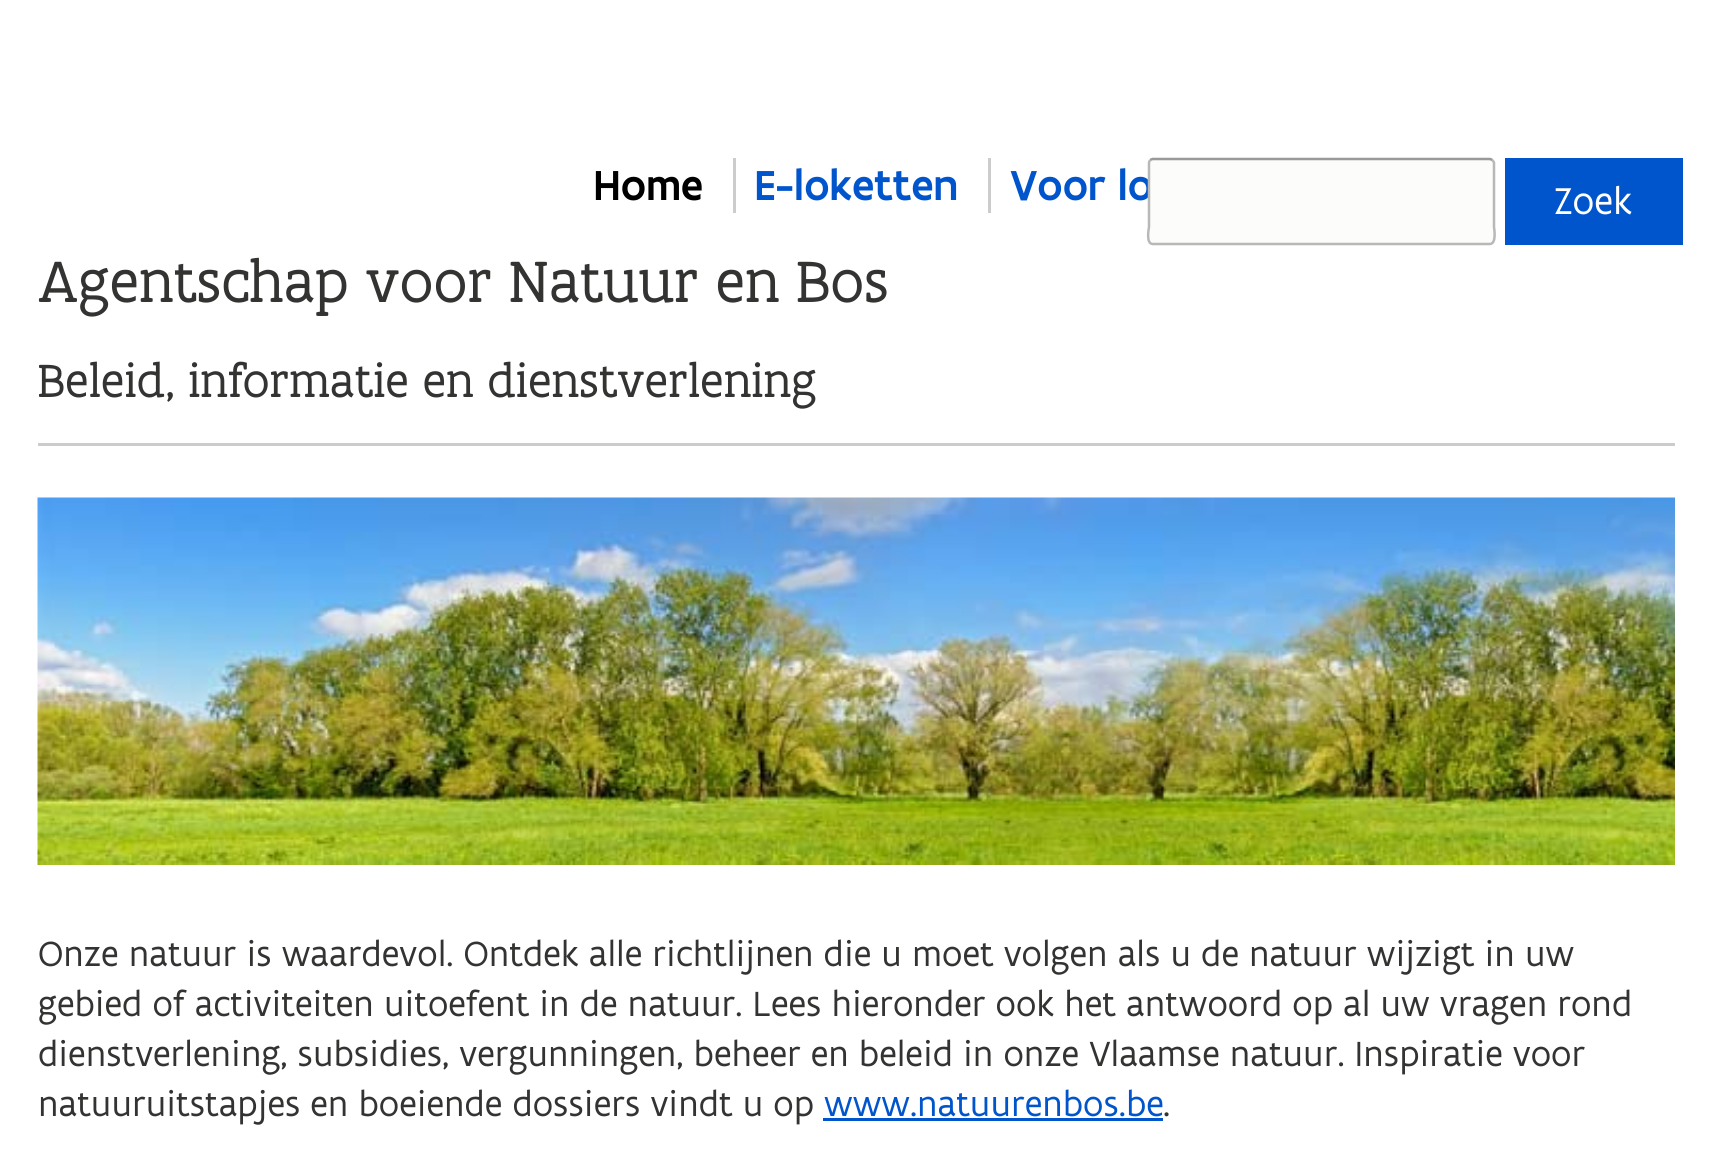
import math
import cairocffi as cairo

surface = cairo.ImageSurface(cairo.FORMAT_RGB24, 1712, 1152)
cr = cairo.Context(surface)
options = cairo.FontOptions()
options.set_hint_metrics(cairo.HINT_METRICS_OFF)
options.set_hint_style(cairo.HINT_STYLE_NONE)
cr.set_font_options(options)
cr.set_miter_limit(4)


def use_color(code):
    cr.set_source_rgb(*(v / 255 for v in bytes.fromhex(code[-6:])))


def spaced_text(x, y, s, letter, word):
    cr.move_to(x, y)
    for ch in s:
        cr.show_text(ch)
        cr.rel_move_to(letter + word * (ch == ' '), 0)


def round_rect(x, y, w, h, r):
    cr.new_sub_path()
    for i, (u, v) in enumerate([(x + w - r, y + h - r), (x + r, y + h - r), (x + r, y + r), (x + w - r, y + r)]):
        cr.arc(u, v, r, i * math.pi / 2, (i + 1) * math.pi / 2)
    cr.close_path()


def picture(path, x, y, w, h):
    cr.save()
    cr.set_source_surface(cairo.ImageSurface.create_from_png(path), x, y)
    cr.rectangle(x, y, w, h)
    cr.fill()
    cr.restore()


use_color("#ffffff")
cr.paint()
cr.select_font_face("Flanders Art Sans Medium")
cr.set_font_size(45)
use_color("#000000")
spaced_text(593, 200, "Home", -0.5, 0)
use_color("#cccccc")
cr.rectangle(733, 158, 3, 55)
cr.fill()
use_color("#0055cc")
spaced_text(754, 200, "E-loketten", -0.5, 0)
use_color("#cccccc")
cr.rectangle(988, 158, 3, 55)
cr.fill()
use_color("#0055cc")
spaced_text(1010, 200, "Voor lo", -0.5, 0)
use_color("#fcfcfa")
round_rect(1148, 158, 347, 87, 5)
cr.fill()
cr.new_path()
cr.move_to(1150, 160)
cr.line_to(1152.5, 159)
cr.line_to(1490, 159)
cr.line_to(1492.5, 160)
use_color("#999999")
cr.set_line_width(2.5)
cr.stroke()
cr.new_path()
cr.move_to(1492.5, 160)
cr.line_to(1494, 162.5)
cr.line_to(1494, 227)
cr.curve_to(1494, 227.5, 1497, 243.5, 1490, 244)
cr.line_to(1152.5, 244)
cr.curve_to(1145.5, 243.5, 1149, 227.5, 1149, 227)
cr.line_to(1149, 162.5)
cr.line_to(1150, 160)
use_color("#b8b8b8")
cr.stroke()
use_color("#0055cc")
cr.rectangle(1505, 158, 178, 87)
cr.fill()
cr.select_font_face("Flanders Art Sans")
cr.set_font_size(40)
use_color("#ffffff")
cr.move_to(1554, 214)
cr.show_text("Zoek")
cr.select_font_face("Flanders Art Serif")
cr.set_font_size(62.5)
use_color("#333332")
cr.move_to(38, 302)
cr.show_text("Agentschap voor Natuur en Bos")
use_color("#cccccc")
cr.rectangle(38, 443, 1637, 3)
cr.fill()
cr.set_font_size(50)
use_color("#333332")
cr.move_to(38, 397)
cr.show_text("Beleid, informatie en dienstverlening")
picture("img1.png", 37, 497, 1638, 368)
cr.select_font_face("Flanders Art Sans")
cr.set_font_size(37.5)
cr.move_to(38, 966)
cr.show_text("Onze natuur is waardevol. Ontdek alle richtlijnen die u moet volgen als u de natuur wijzigt in uw")
cr.move_to(38, 1016)
cr.show_text("gebied of activiteiten uitoefent in de natuur. Lees hieronder ook het antwoord op al uw vragen rond")
cr.move_to(38, 1066)
cr.show_text("dienstverlening, subsidies, vergunningen, beheer en beleid in onze Vlaamse natuur. Inspiratie voor")
cr.move_to(38, 1116)
cr.show_text("natuuruitstapjes en boeiende dossiers vindt u op")
use_color("#0055cc")
cr.move_to(824, 1116)
cr.show_text("www.natuurenbos.be")
cr.rectangle(823, 1118, 340, 3)
cr.fill()
use_color("#333332")
cr.move_to(1163, 1116)
cr.show_text(".")
surface.write_to_png("result.png")
